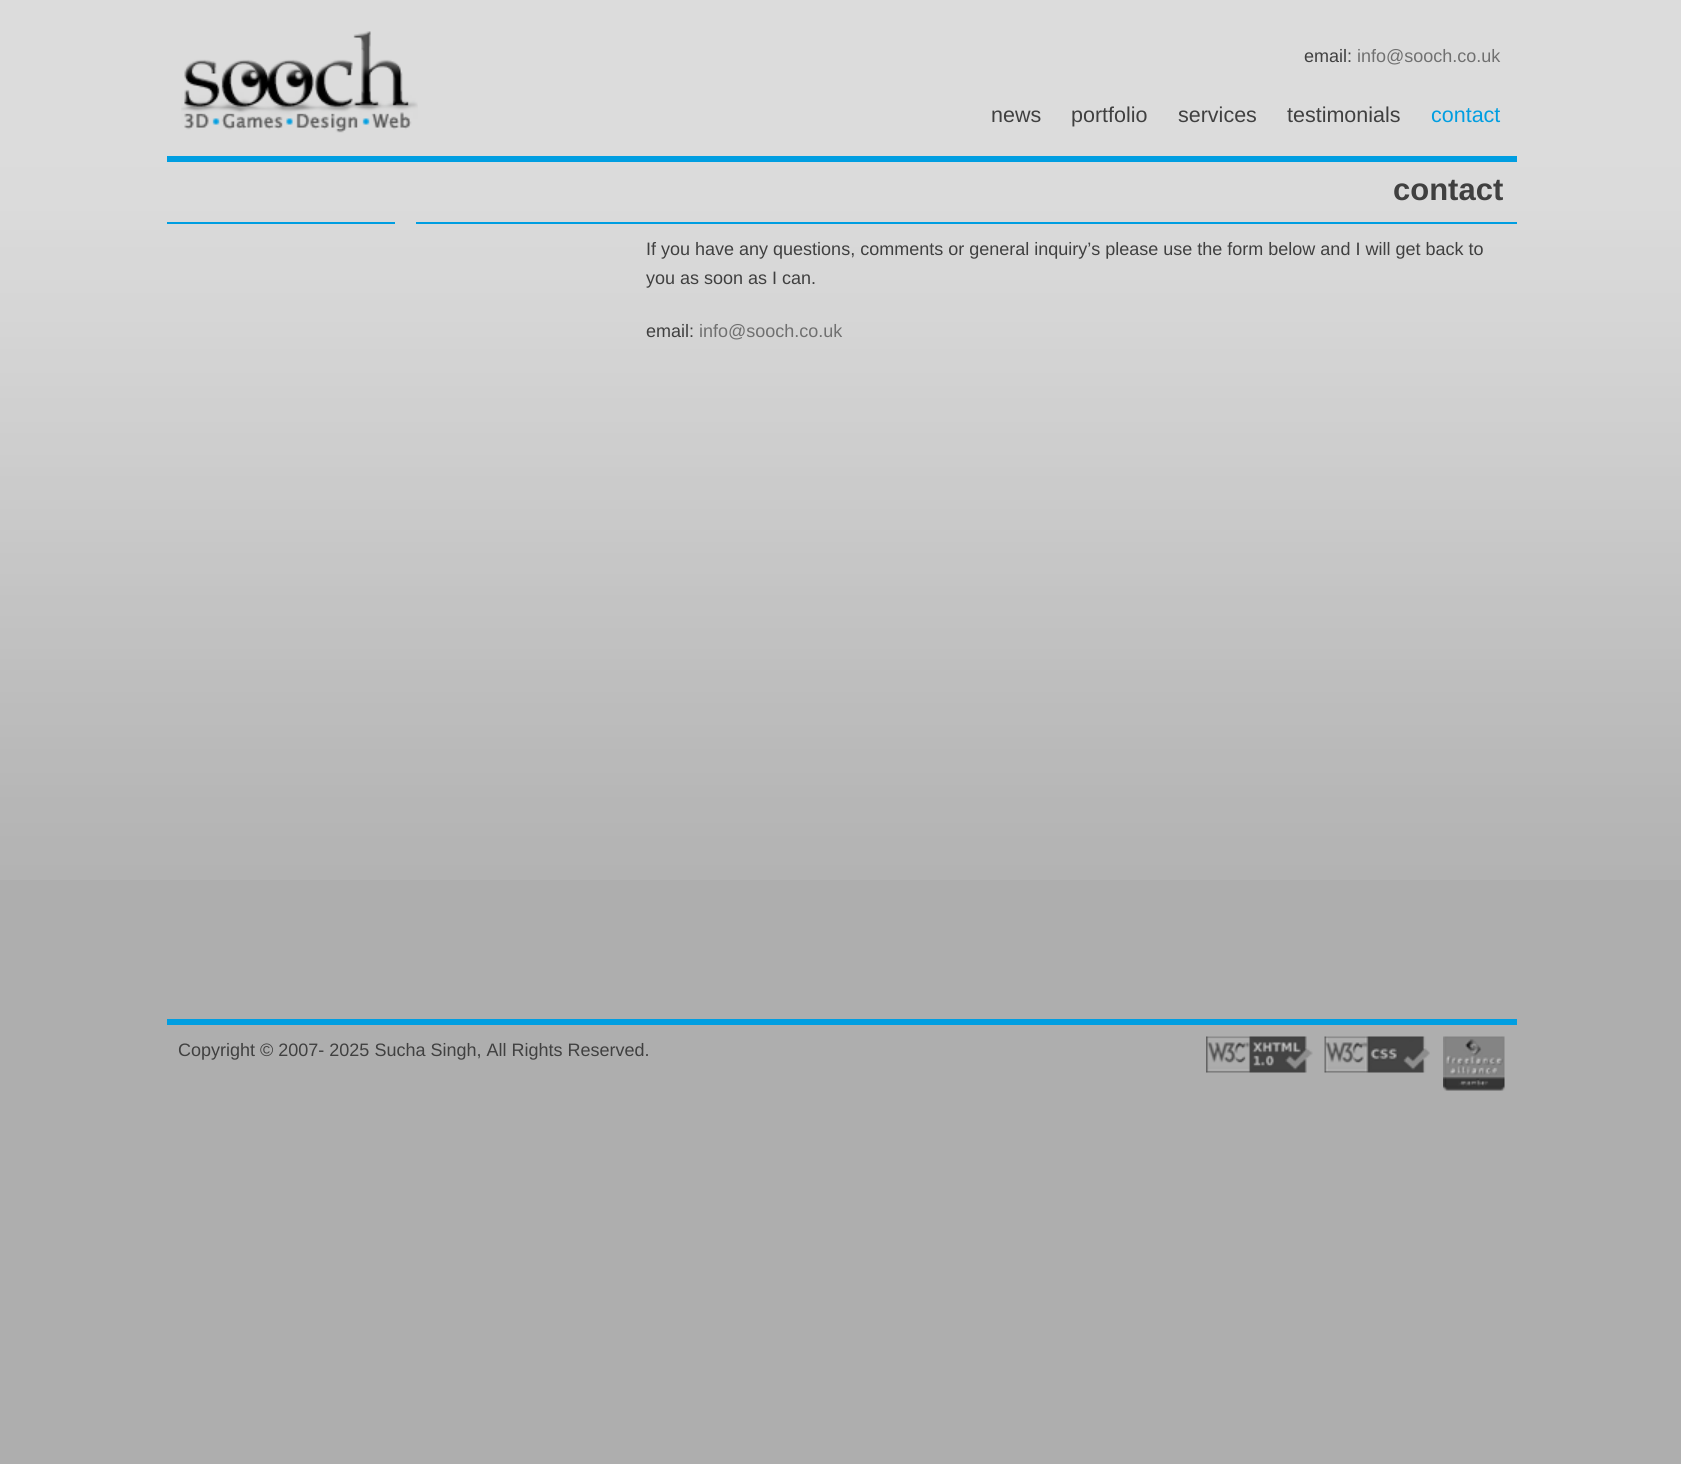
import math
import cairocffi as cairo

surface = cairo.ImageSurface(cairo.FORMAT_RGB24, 1681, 1464)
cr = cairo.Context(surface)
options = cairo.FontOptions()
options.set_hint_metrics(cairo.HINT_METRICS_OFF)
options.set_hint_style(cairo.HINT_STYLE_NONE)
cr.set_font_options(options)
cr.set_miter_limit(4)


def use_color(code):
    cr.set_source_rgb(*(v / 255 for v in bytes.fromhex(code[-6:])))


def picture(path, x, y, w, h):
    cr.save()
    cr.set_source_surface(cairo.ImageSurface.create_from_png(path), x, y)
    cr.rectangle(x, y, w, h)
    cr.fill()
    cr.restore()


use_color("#aeaeae")
cr.paint()
picture("img1.png", 0, 0, 1681, 880)
use_color("#009ee1")
cr.rectangle(167, 156, 1350, 6)
cr.fill()
picture("img2.png", 181, 31, 237, 102)
cr.select_font_face("Liberation Sans")
cr.set_font_size(18)
use_color("#404040")
cr.move_to(1304, 62)
cr.show_text("email:")
use_color("#707070")
cr.move_to(1357, 62)
cr.show_text("info@sooch.co.uk")
cr.set_font_size(21.5)
use_color("#404040")
cr.move_to(991, 122)
cr.show_text("news")
cr.move_to(1071, 122)
cr.show_text("portfolio")
cr.move_to(1178, 122)
cr.show_text("services")
cr.move_to(1287, 122)
cr.show_text("testimonials")
use_color("#009ee1")
cr.move_to(1431, 122)
cr.show_text("contact")
cr.rectangle(416, 222, 1101, 2)
cr.fill()
cr.select_font_face("Liberation Sans", cairo.FONT_SLANT_NORMAL, cairo.FONT_WEIGHT_BOLD)
cr.set_font_size(31)
use_color("#404040")
cr.move_to(1393, 200)
cr.show_text("contact")
use_color("#009ee1")
cr.rectangle(167, 222, 228, 2)
cr.fill()
cr.select_font_face("Liberation Sans")
cr.set_font_size(18)
use_color("#404040")
cr.move_to(646, 255)
cr.show_text("If you have any questions, comments or general inquiry’s please use the form below and I will get back to")
cr.move_to(646, 284)
cr.show_text("you as soon as I can.")
cr.move_to(646, 337)
cr.show_text("email:")
use_color("#707070")
cr.move_to(699, 337)
cr.show_text("info@sooch.co.uk")
use_color("#009ee1")
cr.rectangle(167, 1019, 1350, 6)
cr.fill()
use_color("#404040")
cr.move_to(178, 1056)
cr.show_text("Copyright © 2007- 2025 Sucha Singh, All Rights Reserved.")
picture("img3.png", 1206, 1036, 107, 37)
picture("img4.png", 1324, 1036, 106, 37)
picture("img5.png", 1443, 1036, 62, 55)
surface.write_to_png("result.png")
